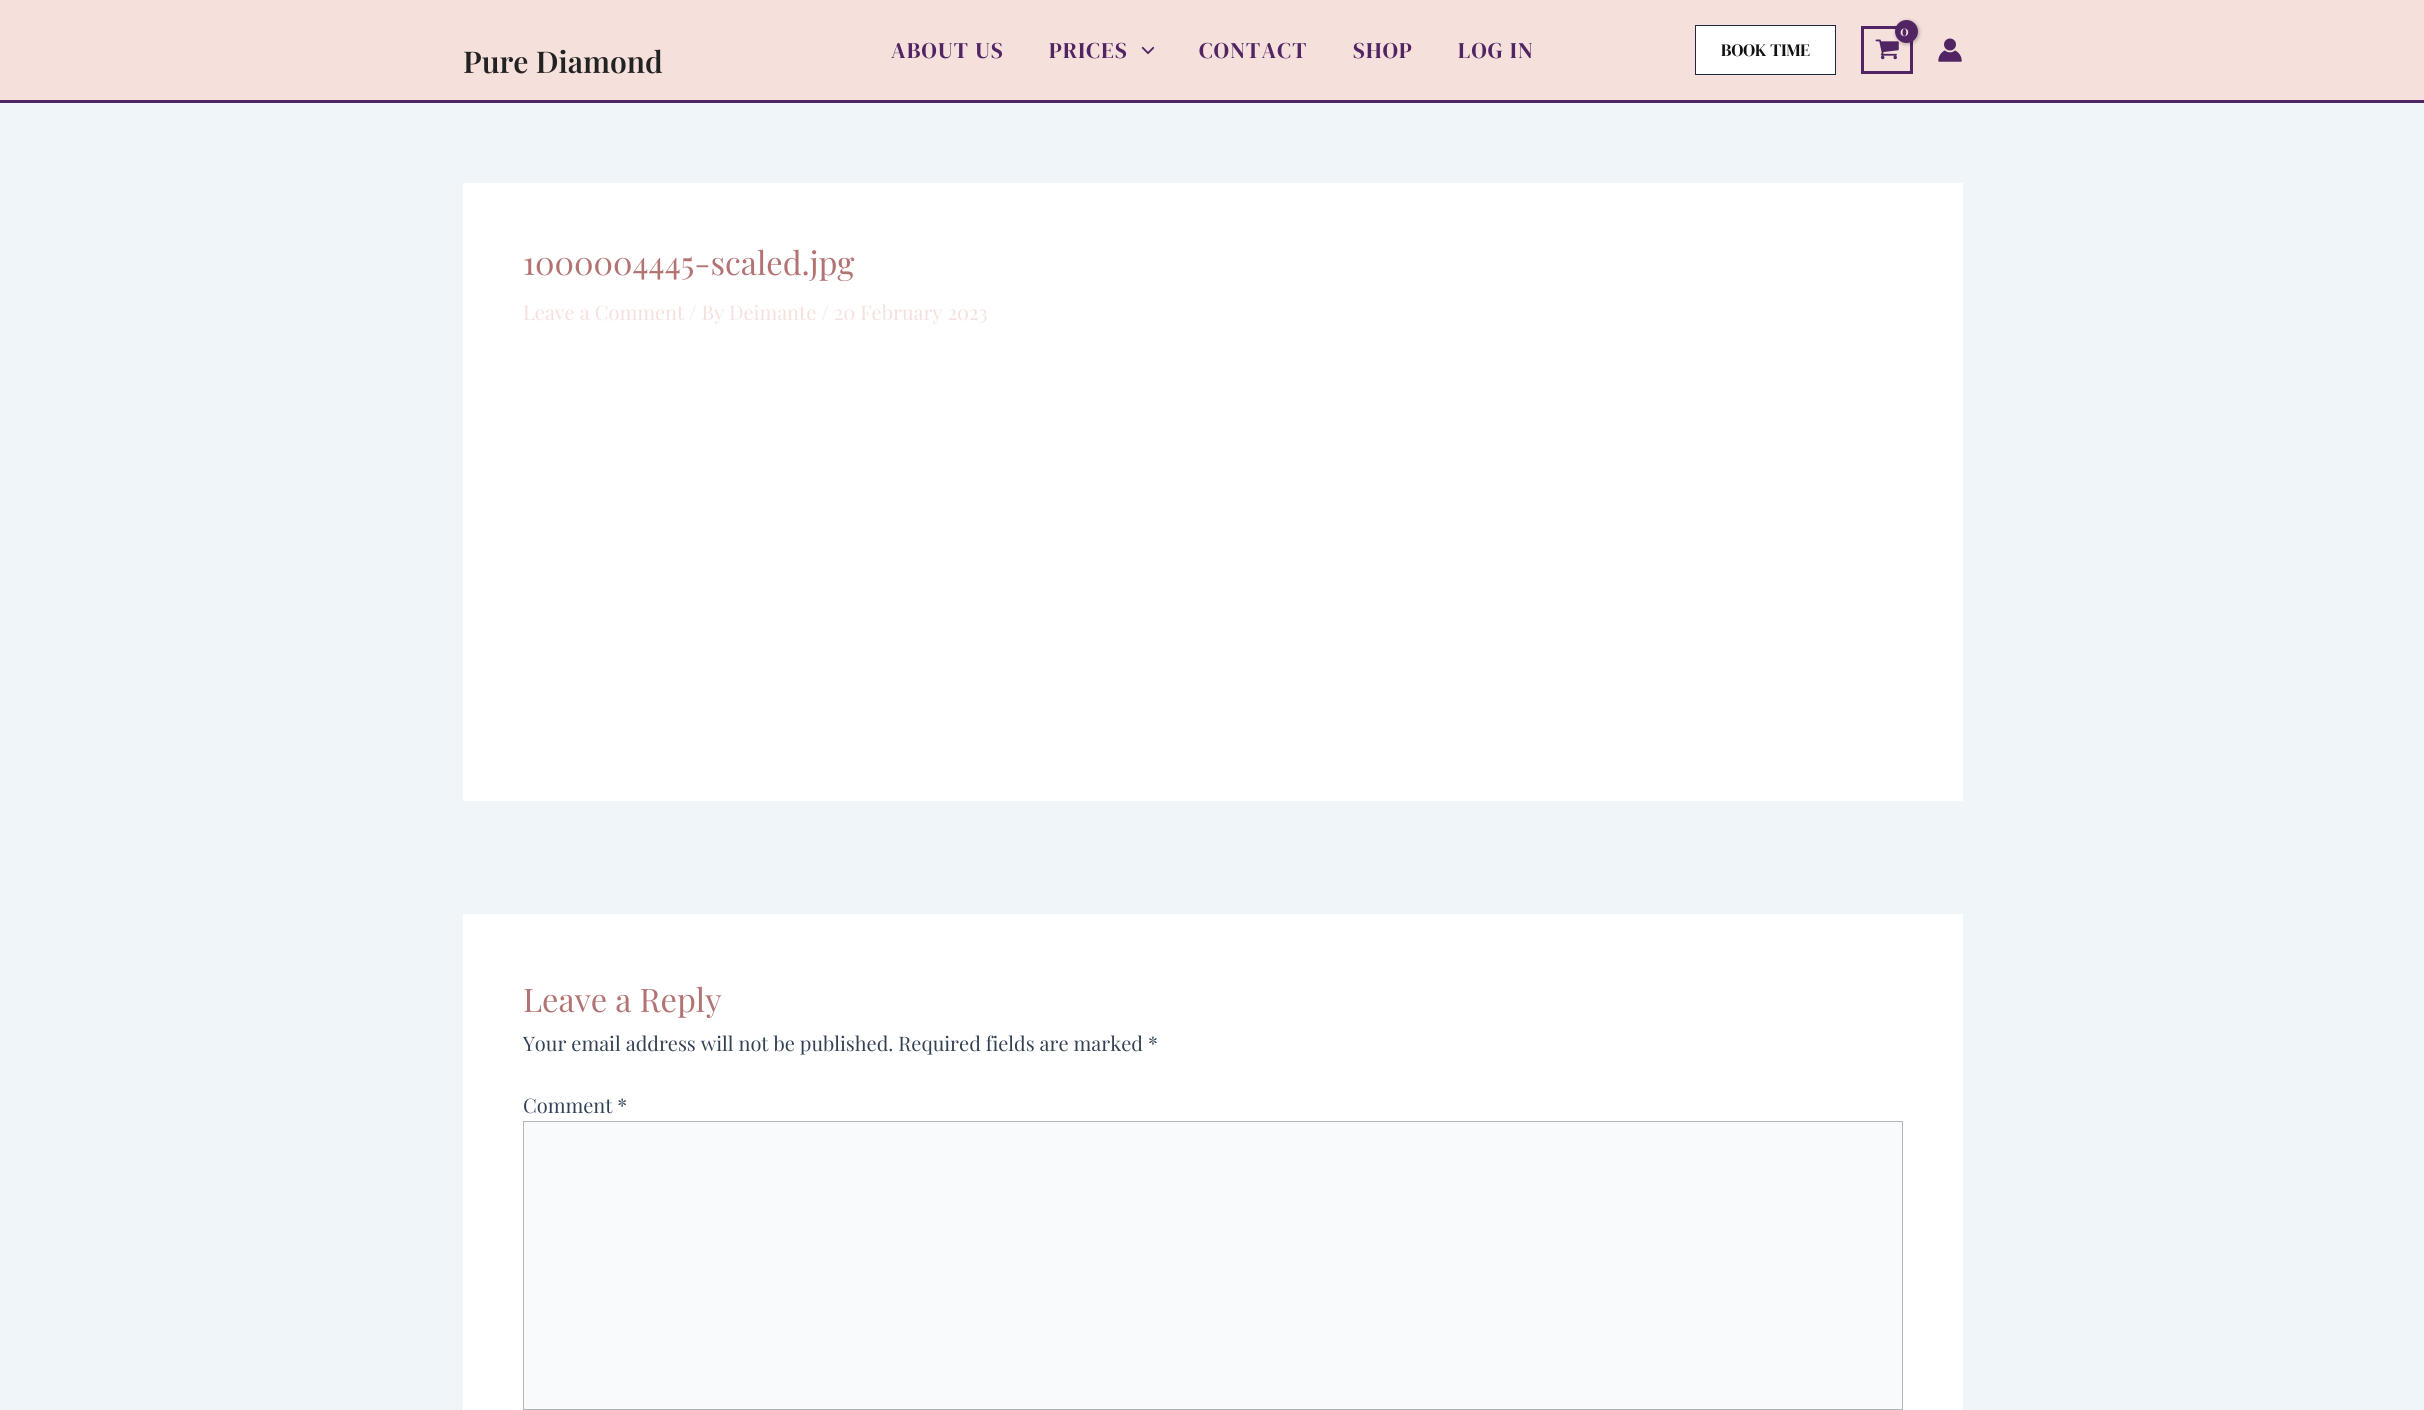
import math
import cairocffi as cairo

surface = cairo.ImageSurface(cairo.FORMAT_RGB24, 2424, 1410)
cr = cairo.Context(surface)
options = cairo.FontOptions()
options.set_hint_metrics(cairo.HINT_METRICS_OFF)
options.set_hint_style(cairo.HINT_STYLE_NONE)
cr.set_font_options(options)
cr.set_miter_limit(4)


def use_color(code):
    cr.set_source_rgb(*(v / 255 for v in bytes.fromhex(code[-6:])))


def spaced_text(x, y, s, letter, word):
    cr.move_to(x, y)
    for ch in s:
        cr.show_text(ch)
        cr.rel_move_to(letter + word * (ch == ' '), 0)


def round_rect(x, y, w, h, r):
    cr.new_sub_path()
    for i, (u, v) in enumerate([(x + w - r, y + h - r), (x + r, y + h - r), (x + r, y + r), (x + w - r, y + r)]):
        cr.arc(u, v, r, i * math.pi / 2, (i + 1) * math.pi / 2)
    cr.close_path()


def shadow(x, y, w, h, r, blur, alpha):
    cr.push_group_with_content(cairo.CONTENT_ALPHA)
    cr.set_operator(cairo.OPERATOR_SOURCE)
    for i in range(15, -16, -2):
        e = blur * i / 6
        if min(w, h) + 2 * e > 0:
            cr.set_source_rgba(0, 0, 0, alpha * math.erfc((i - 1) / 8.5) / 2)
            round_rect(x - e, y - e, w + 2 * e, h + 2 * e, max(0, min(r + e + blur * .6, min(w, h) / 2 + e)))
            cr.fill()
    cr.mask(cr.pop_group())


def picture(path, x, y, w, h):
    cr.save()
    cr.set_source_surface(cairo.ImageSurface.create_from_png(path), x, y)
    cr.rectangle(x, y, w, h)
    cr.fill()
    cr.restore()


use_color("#f0f5fa")
cr.paint()
use_color("#f5e0dc")
cr.rectangle(0, 0, 2424, 100)
cr.fill()
use_color("#512563")
cr.rectangle(0, 100, 2424, 3)
cr.fill()
cr.select_font_face("Playfair Display SemiBold")
cr.set_font_size(30)
use_color("#222222")
cr.move_to(463, 73)
cr.show_text("Pure Diamond")
cr.select_font_face("DM Serif Display")
cr.set_font_size(22.5)
use_color("#512563")
spaced_text(891, 58, "ABOUT US", 1.25, 0)
spaced_text(1049, 58, "PRICES", 1.25, 0)
picture("img1.png", 1141, 46, 13, 9)
spaced_text(1199, 58, "CONTACT", 1.25, 0)
spaced_text(1353, 58, "SHOP", 1.25, 0)
spaced_text(1458, 58, "LOG IN", 1.25, 0)
cr.rectangle(1862.5, 27.5, 49, 45)
cr.set_line_width(3)
cr.stroke()
picture("img2.png", 1875, 39, 24, 21)
use_color("#000000")
shadow(1896, 21, 23, 23, 11.5, 2, 0.3)
use_color("#512563")
cr.arc(1906.5, 31.5, 11.5, 0, 2 * math.pi)
cr.fill()
cr.select_font_face("Playfair Display SemiBold")
cr.set_font_size(14)
use_color("#f5e0dc")
spaced_text(1900, 36, "0", -1, 0)
use_color("#ffffff")
cr.rectangle(1695.5, 25.5, 140, 49)
cr.fill_preserve()
use_color("#1e293b")
cr.set_line_width(1)
cr.stroke()
cr.select_font_face("DM Serif Display")
cr.set_font_size(17.5)
use_color("#111111")
cr.move_to(1721, 56)
cr.show_text("BOOK TIME")
picture("img3.png", 1938, 38, 24, 24)
use_color("#ffffff")
cr.rectangle(463, 183, 1500, 618)
cr.fill()
cr.select_font_face("Playfair Display")
cr.set_font_size(32.5)
use_color("#b37373")
cr.move_to(523, 275)
cr.show_text("1000004445-scaled.jpg")
cr.set_font_size(20)
use_color("#f5e0dc")
cr.move_to(523, 320)
cr.show_text("Leave a Comment / By Deimante / 20 February 2023")
use_color("#ffffff")
cr.rectangle(463, 914, 1500, 496)
cr.fill()
cr.set_font_size(32.5)
use_color("#b37373")
cr.move_to(523, 1012)
cr.show_text("Leave a Reply")
cr.set_font_size(20)
use_color("#334155")
cr.move_to(523, 1051)
cr.show_text("Your email address will not be published. Required fields are marked *")
cr.move_to(523, 1113)
cr.show_text("Comment *")
use_color("#f9fafb")
cr.rectangle(523.5, 1121.5, 1379, 288)
cr.fill_preserve()
use_color("#adb6be")
cr.stroke()
surface.write_to_png("result.png")
